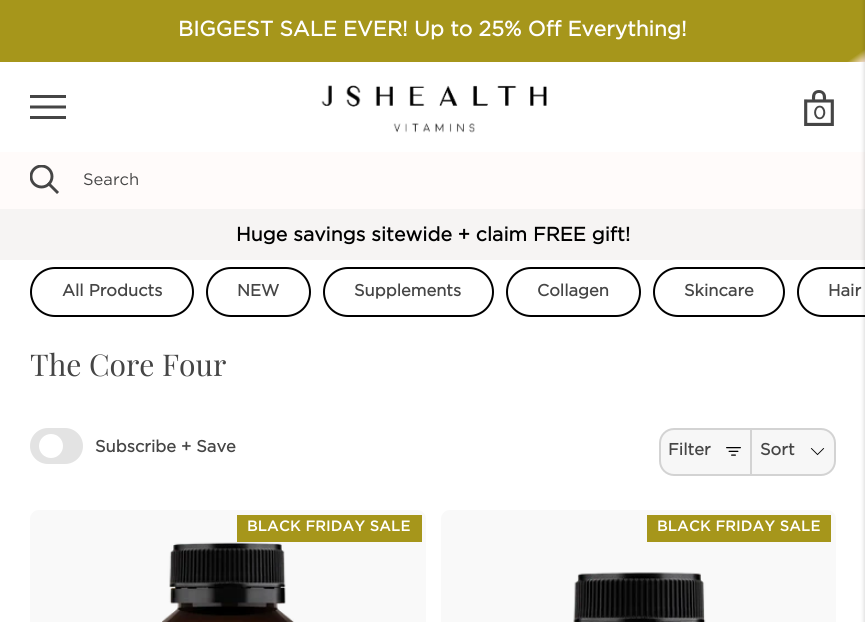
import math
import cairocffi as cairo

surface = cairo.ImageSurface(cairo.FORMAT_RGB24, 865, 622)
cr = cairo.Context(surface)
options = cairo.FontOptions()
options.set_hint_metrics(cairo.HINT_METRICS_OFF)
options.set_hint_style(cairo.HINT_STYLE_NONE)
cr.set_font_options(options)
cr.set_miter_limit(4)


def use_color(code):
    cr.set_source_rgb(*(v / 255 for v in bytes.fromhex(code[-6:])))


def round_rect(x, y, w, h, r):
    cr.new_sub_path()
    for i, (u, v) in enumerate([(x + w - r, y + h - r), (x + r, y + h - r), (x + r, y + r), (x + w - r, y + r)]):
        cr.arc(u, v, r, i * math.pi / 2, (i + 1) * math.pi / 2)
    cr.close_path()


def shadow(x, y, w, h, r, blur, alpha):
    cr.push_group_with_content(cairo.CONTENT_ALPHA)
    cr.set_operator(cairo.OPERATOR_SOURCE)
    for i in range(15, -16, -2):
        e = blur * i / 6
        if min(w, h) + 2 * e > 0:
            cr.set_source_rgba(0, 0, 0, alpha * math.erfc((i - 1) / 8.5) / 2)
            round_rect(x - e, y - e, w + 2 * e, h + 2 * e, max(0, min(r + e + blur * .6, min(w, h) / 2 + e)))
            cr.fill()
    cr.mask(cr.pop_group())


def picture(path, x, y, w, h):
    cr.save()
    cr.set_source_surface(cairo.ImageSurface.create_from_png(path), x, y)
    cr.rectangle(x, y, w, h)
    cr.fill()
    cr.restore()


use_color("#ffffff")
cr.paint()
gradient = cairo.LinearGradient(276, -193, 590, 255)
gradient.add_color_stop_rgba(0.98, 0.651, 0.588, 0.106, 1)
gradient.add_color_stop_rgba(1, 0.992, 0.902, 0.863, 1)
cr.set_source(gradient)
cr.rectangle(0, 0, 865, 62)
cr.fill()
cr.select_font_face("Gotham", cairo.FONT_SLANT_NORMAL, cairo.FONT_WEIGHT_BOLD)
cr.set_font_size(21)
use_color("#ffffff")
cr.move_to(178, 36)
cr.show_text("BIGGEST SALE EVER! Up to 25% Off Everything!")
use_color("#fffbfa")
cr.rectangle(0, 152, 865, 57)
cr.fill()
use_color("#f6f4f3")
cr.rectangle(0, 209, 865, 51)
cr.fill()
round_rect(798, 268, 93, 48, 24)
use_color("#000000")
cr.stroke()
use_color("#000000")
shadow(864, -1, 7, 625, 0, 2, 0.15)
use_color("#454545")
cr.new_path()
cr.move_to(30, 119)
cr.line_to(30, 116)
cr.line_to(66, 116)
cr.line_to(66, 119)
cr.close_path()
cr.move_to(30, 105.5)
cr.line_to(66, 105.5)
cr.line_to(66, 108.5)
cr.line_to(30, 108.5)
cr.close_path()
cr.move_to(30, 95)
cr.line_to(66, 95)
cr.line_to(66, 98)
cr.line_to(30, 98)
cr.close_path()
cr.fill()
picture("img1.png", 321, 85, 226, 48)
picture("img2.png", 804, 90, 30, 36)
cr.set_font_size(18)
cr.move_to(813, 119)
cr.show_text("0")
cr.new_path()
cr.move_to(57, 192)
cr.line_to(49, 184)
cr.set_line_width(2.9)
cr.set_line_cap(cairo.LINE_CAP_SQUARE)
cr.stroke()
cr.save()
cr.rectangle(30, 165, 30, 30)
cr.clip()
cr.arc(41.5, 176.5, 10.5, 0, 2 * math.pi)
cr.set_line_cap(cairo.LINE_CAP_BUTT)
cr.stroke()
cr.restore()
cr.select_font_face("Gotham")
cr.set_font_size(16.5)
cr.move_to(83, 185)
cr.show_text("Search")
cr.select_font_face("Gotham", cairo.FONT_SLANT_NORMAL, cairo.FONT_WEIGHT_BOLD)
cr.set_font_size(19.5)
use_color("#000000")
cr.move_to(236, 241)
cr.show_text("Huge savings sitewide + claim FREE gift!")
round_rect(31, 268, 162, 48, 24)
cr.set_line_width(2)
cr.set_line_cap(cairo.LINE_CAP_BUTT)
cr.stroke()
cr.set_font_size(16.5)
use_color("#454545")
cr.move_to(62, 296)
cr.show_text("All Products")
round_rect(207, 268, 103, 48, 24)
use_color("#000000")
cr.stroke()
use_color("#454545")
cr.move_to(237, 296)
cr.show_text("NEW")
round_rect(324, 268, 169, 48, 24)
use_color("#000000")
cr.stroke()
use_color("#454545")
cr.move_to(354, 296)
cr.show_text("Supplements")
round_rect(507, 268, 133, 48, 24)
use_color("#000000")
cr.stroke()
use_color("#454545")
cr.move_to(537, 296)
cr.show_text("Collagen")
round_rect(654, 268, 130, 48, 24)
use_color("#000000")
cr.stroke()
use_color("#454545")
cr.move_to(684, 296)
cr.show_text("Skincare")
cr.move_to(828, 296)
cr.show_text("Hair")
cr.select_font_face("Playfair Display")
cr.set_font_size(30)
cr.move_to(30, 376)
cr.show_text("The Core Four")
use_color("#e3e3e3")
round_rect(31, 429, 51, 34, 17)
cr.fill_preserve()
cr.stroke()
use_color("#ffffff")
cr.arc(51, 446, 12, 0, 2 * math.pi)
cr.fill()
cr.select_font_face("Gotham", cairo.FONT_SLANT_NORMAL, cairo.FONT_WEIGHT_BOLD)
cr.set_font_size(16.5)
use_color("#454545")
cr.move_to(95, 452)
cr.show_text("Subscribe + Save")
use_color("#f7f7f7")
round_rect(660, 429, 175, 46, 14)
cr.fill_preserve()
use_color("#d3d3d3")
cr.stroke()
cr.rectangle(750, 429, 2, 45)
cr.fill()
use_color("#454545")
cr.move_to(668, 455)
cr.show_text("Filter")
picture("img3.png", 726, 447, 15, 9)
cr.move_to(760, 455)
cr.show_text("Sort")
picture("img4.png", 810, 448, 15, 8)
use_color("#f9f9f9")
round_rect(30, 510, 396, 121, 9)
cr.fill()
picture("img5.png", 162, 542, 132, 80)
use_color("#a6961b")
cr.rectangle(237, 515, 185, 27)
cr.fill()
cr.select_font_face("Gotham Medium")
cr.set_font_size(15)
use_color("#ffffff")
cr.move_to(247, 531)
cr.show_text("BLACK FRIDAY SALE")
use_color("#f9f9f9")
round_rect(441, 510, 395, 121, 9)
cr.fill()
picture("img6.png", 573, 572, 133, 50)
use_color("#a6961b")
cr.rectangle(647, 515, 184, 27)
cr.fill()
use_color("#ffffff")
cr.move_to(657, 531)
cr.show_text("BLACK FRIDAY SALE")
surface.write_to_png("result.png")
